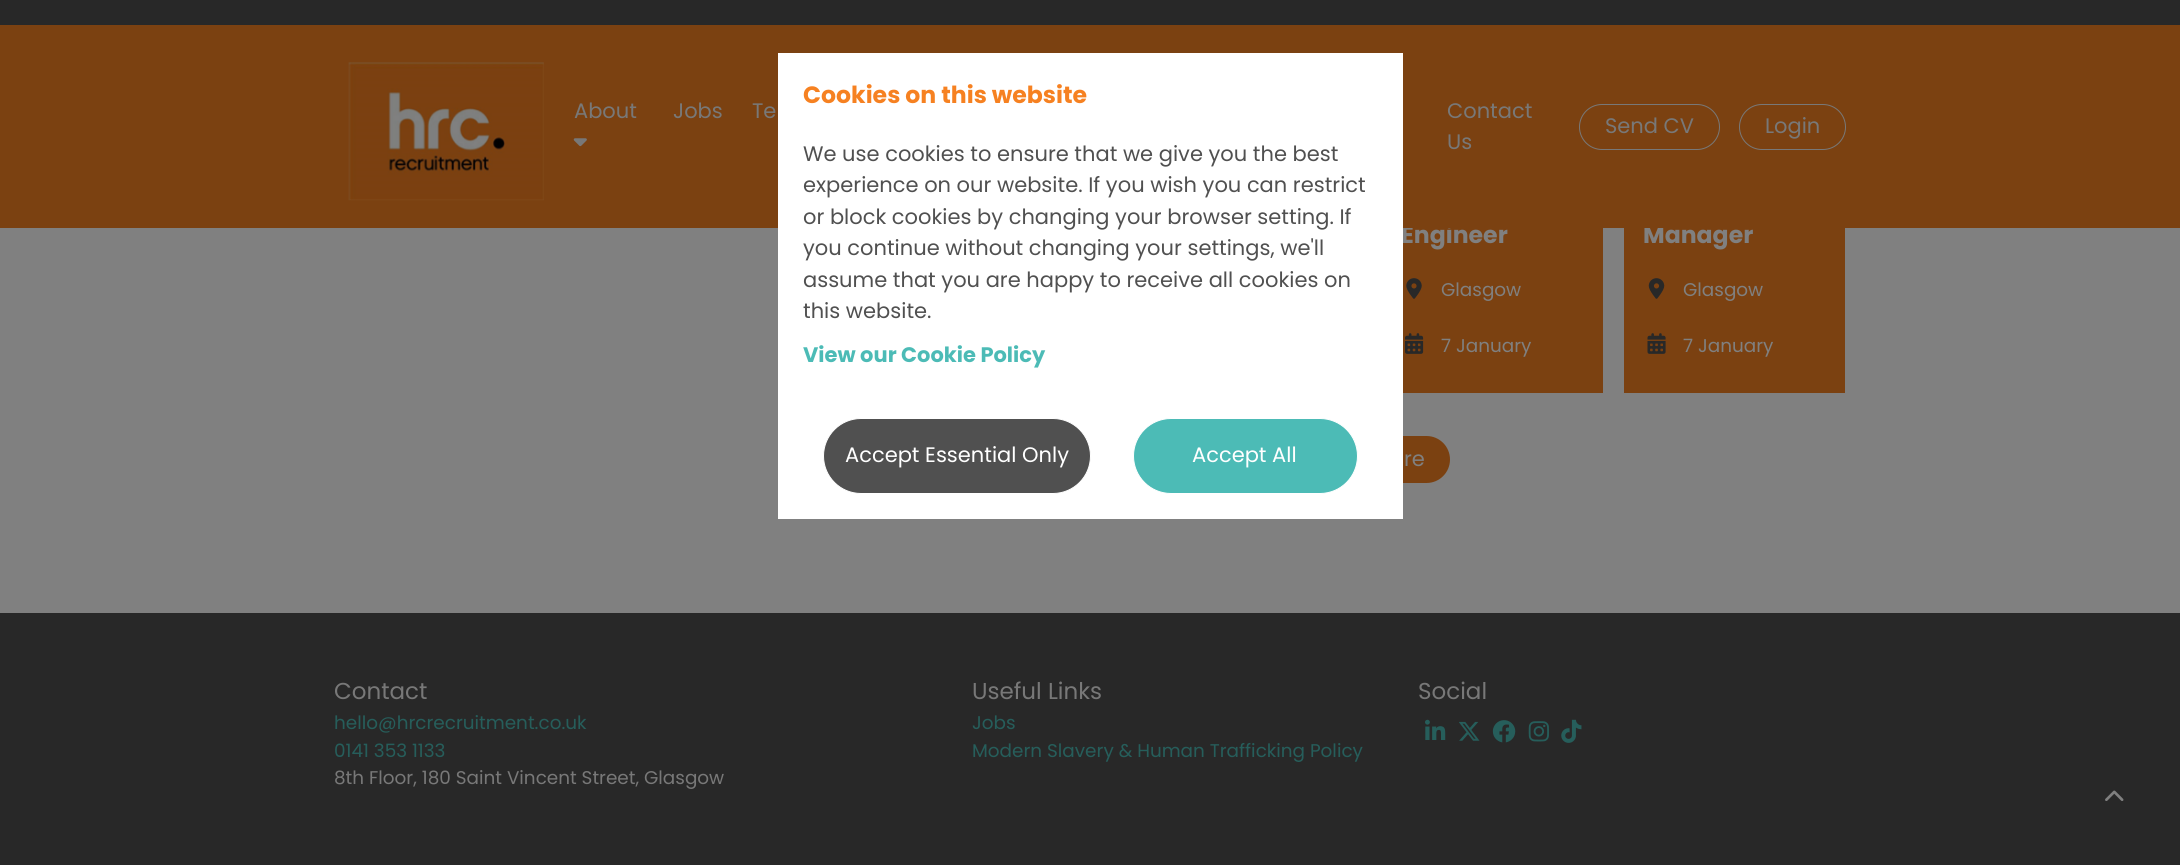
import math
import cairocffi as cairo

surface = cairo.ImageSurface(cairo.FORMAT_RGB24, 2180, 865)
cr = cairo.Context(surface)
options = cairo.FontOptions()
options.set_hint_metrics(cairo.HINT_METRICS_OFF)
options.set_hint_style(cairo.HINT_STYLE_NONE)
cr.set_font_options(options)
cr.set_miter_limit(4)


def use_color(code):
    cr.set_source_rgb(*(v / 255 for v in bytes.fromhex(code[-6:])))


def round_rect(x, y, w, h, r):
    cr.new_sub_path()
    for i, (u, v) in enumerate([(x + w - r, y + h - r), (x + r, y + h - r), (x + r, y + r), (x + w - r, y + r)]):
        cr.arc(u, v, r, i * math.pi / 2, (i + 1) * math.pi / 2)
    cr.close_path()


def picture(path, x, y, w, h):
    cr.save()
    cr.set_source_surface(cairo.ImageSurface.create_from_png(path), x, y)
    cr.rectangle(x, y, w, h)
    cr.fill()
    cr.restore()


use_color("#808080")
cr.paint()
use_color("#7b4111")
cr.rectangle(1403, 228, 200, 165)
cr.fill()
cr.select_font_face("Poppins", cairo.FONT_SLANT_NORMAL, cairo.FONT_WEIGHT_BOLD)
cr.set_font_size(23.6)
use_color("#808080")
cr.move_to(1401, 243)
cr.show_text("Engineer")
use_color("#7b4111")
cr.rectangle(1624, 228, 221, 165)
cr.fill()
use_color("#808080")
cr.move_to(1643, 243)
cr.show_text("Manager")
use_color("#7b4111")
cr.rectangle(0, 25, 2180, 203)
cr.fill()
round_rect(1293, 436, 157, 47, 23.5)
cr.fill()
use_color("#ffffff")
cr.rectangle(778, 53, 625, 466)
cr.fill()
use_color("#f68121")
cr.move_to(803, 103)
cr.show_text("Cookies on this website")
cr.select_font_face("Poppins")
cr.set_font_size(21)
use_color("#505050")
cr.move_to(803, 161)
cr.show_text("We use cookies to ensure that we give you the best")
cr.move_to(803, 192)
cr.show_text("experience on our website. If you wish you can restrict")
cr.move_to(803, 224)
cr.show_text("or block cookies by changing your browser setting. If")
cr.move_to(803, 255)
cr.show_text("you continue without changing your settings, we'll")
cr.move_to(803, 287)
cr.show_text("assume that you are happy to receive all cookies on")
cr.move_to(803, 318)
cr.show_text("this website.")
cr.select_font_face("Poppins", cairo.FONT_SLANT_NORMAL, cairo.FONT_WEIGHT_BOLD)
use_color("#4cbbb6")
cr.move_to(803, 362)
cr.show_text("View our Cookie Policy")
use_color("#505050")
round_rect(823.5, 418.5, 267, 75, 37.5)
cr.fill_preserve()
use_color("#ffffff")
cr.set_line_width(1)
cr.stroke()
cr.select_font_face("Poppins")
cr.move_to(845, 462)
cr.show_text("Accept Essential Only")
use_color("#4cbbb6")
round_rect(1133.5, 418.5, 224, 75, 37.5)
cr.fill_preserve()
use_color("#ffffff")
cr.stroke()
cr.move_to(1192, 462)
cr.show_text("Accept All")
use_color("#282828")
cr.rectangle(0, 0, 2180, 25)
cr.fill()
picture("img1.png", 348, 62, 196, 139)
use_color("#787878")
cr.move_to(574, 118)
cr.show_text("About")
picture("img2.png", 573, 138, 14, 9)
cr.move_to(673, 118)
cr.show_text("Jobs")
cr.move_to(752, 118)
cr.show_text("Te")
cr.move_to(1447, 118)
cr.show_text("Contact")
cr.move_to(1447, 149)
cr.show_text("Us")
round_rect(1579.5, 104.5, 140, 45, 22.5)
cr.stroke()
cr.move_to(1605, 133)
cr.show_text("Send CV")
round_rect(1739.5, 104.5, 106, 45, 22.5)
cr.stroke()
cr.move_to(1765, 133)
cr.show_text("Login")
picture("img3.png", 1406, 278, 16, 21)
cr.set_font_size(18.4)
use_color("#808080")
cr.move_to(1441, 296)
cr.show_text("Glasgow")
picture("img4.png", 1405, 333, 19, 21)
cr.move_to(1441, 352)
cr.show_text("7 January")
picture("img5.png", 1648, 278, 17, 21)
cr.move_to(1683, 296)
cr.show_text("Glasgow")
picture("img6.png", 1647, 333, 19, 21)
cr.move_to(1683, 352)
cr.show_text("7 January")
cr.set_font_size(21)
cr.move_to(1404, 466)
cr.show_text("re")
use_color("#282828")
cr.rectangle(0, 613, 2180, 252)
cr.fill()
cr.set_font_size(23)
use_color("#787878")
cr.move_to(334, 699)
cr.show_text("Contact")
cr.set_font_size(18.4)
use_color("#265e5b")
cr.move_to(334, 729)
cr.show_text("hello@hrcrecruitment.co.uk")
cr.move_to(334, 757)
cr.show_text("0141 353 1133")
use_color("#787878")
cr.move_to(334, 784)
cr.show_text("8th Floor, 180 Saint Vincent Street, Glasgow")
cr.set_font_size(23)
cr.move_to(972, 699)
cr.show_text("Useful Links")
cr.set_font_size(18.4)
use_color("#265e5b")
cr.move_to(972, 729)
cr.show_text("Jobs")
cr.move_to(972, 757)
cr.show_text("Modern Slavery & Human Trafficking Policy")
cr.set_font_size(23)
use_color("#787878")
cr.move_to(1418, 699)
cr.show_text("Social")
picture("img7.png", 1425, 719, 21, 21)
picture("img8.png", 1459, 721, 21, 20)
picture("img9.png", 1492, 720, 24, 23)
picture("img10.png", 1528, 721, 21, 21)
picture("img11.png", 1561, 719, 21, 24)
picture("img12.png", 2105, 790, 19, 11)
surface.write_to_png("result.png")
